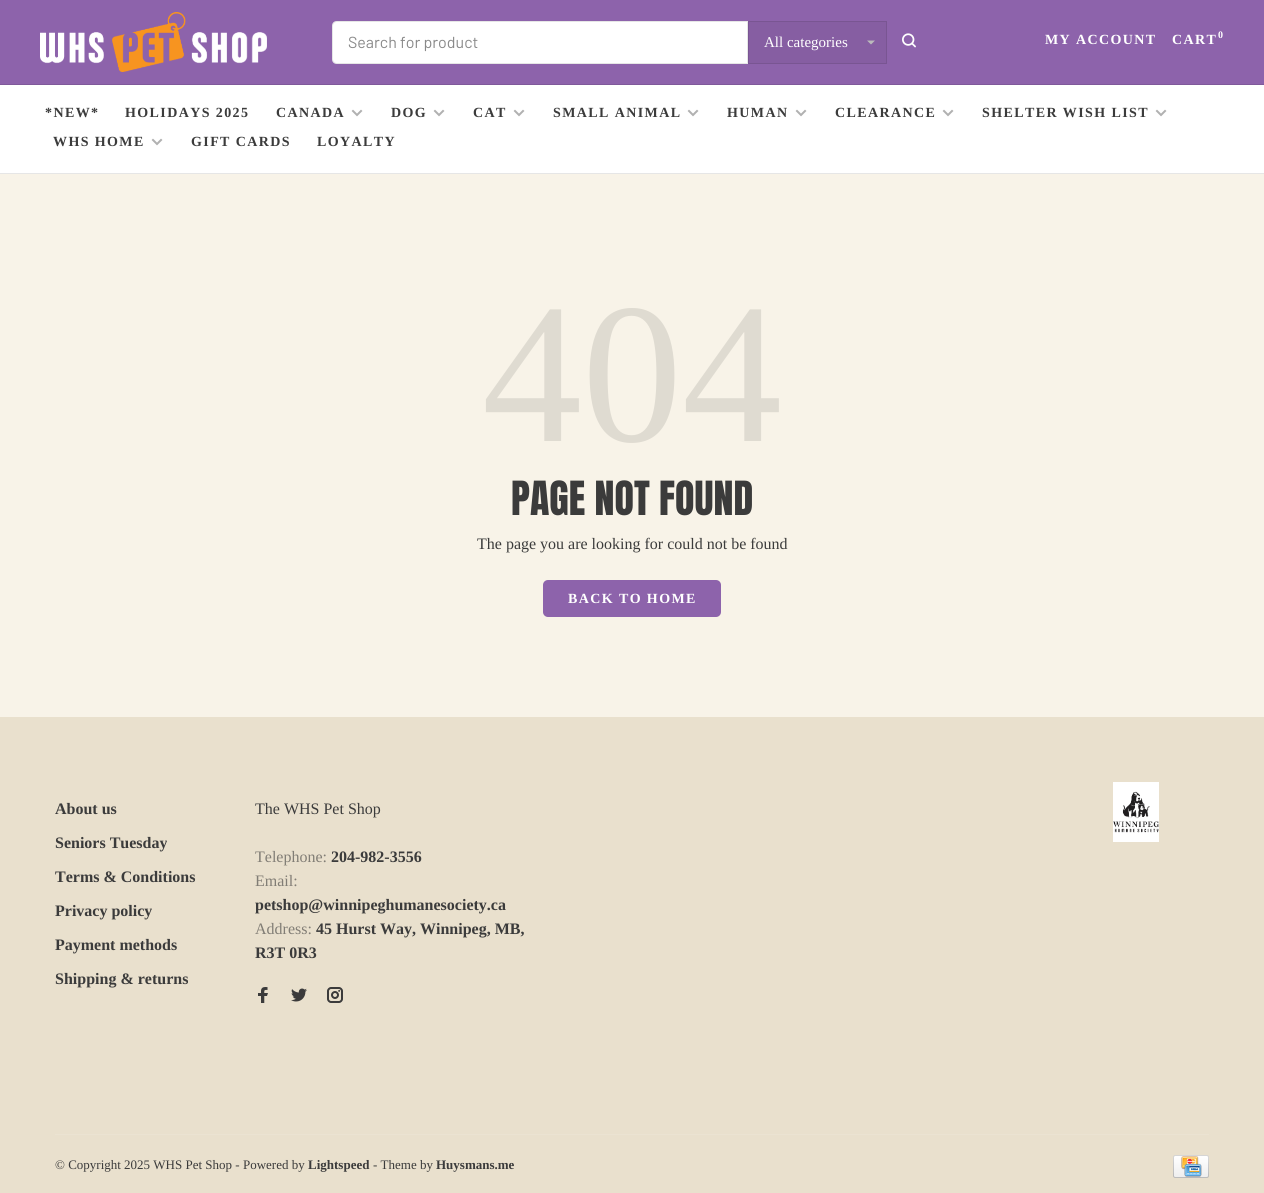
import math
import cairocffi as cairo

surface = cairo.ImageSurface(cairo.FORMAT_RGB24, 1264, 1193)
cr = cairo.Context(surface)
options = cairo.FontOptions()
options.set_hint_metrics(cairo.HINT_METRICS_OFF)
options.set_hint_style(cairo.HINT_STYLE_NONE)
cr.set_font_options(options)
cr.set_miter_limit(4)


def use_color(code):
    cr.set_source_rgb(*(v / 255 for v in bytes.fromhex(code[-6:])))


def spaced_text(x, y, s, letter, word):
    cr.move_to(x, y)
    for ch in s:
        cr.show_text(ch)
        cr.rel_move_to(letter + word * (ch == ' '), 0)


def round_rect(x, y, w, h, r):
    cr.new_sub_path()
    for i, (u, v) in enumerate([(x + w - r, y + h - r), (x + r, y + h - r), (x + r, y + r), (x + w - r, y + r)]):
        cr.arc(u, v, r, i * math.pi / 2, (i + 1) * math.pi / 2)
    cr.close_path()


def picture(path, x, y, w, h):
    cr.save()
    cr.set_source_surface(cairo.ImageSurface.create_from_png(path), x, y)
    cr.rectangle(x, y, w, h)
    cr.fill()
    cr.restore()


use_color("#f8f3e8")
cr.paint()
use_color("#8d63ab")
cr.rectangle(0, 0, 1264, 84)
cr.fill()
use_color("#7f599a")
cr.rectangle(0, 84, 1264, 1)
cr.fill()
picture("img1.png", 40, 12, 227, 60)
use_color("#ffffff")
cr.new_path()
cr.move_to(337, 21)
cr.line_to(748, 21)
cr.line_to(748, 64)
cr.line_to(337, 64)
cr.curve_to(334, 64, 332, 62, 332, 59)
cr.line_to(332, 26)
cr.curve_to(332, 23, 334, 21, 337, 21)
cr.close_path()
cr.fill()
cr.new_path()
cr.move_to(337, 21.5)
cr.line_to(747.5, 21.5)
cr.line_to(747.5, 63.5)
cr.line_to(337, 63.5)
cr.curve_to(334.5, 63.5, 332.5, 61.5, 332.5, 59)
cr.line_to(332.5, 26)
cr.curve_to(332.5, 23.5, 334.5, 21.5, 337, 21.5)
cr.close_path()
cr.set_source_rgba(0, 0, 0, 0.1)
cr.set_line_width(1)
cr.stroke()
cr.select_font_face("Barlow")
cr.set_font_size(16)
use_color("#898989")
cr.move_to(348, 48)
cr.show_text("Search for product")
use_color("#865ea2")
cr.rectangle(748.5, 21.5, 138, 42)
cr.fill_preserve()
use_color("#795592")
cr.stroke()
cr.select_font_face("Tinos")
cr.set_font_size(15)
use_color("#ffffff")
cr.move_to(764, 47)
cr.show_text("All categories")
use_color("#bbbbbb")
cr.new_path()
cr.move_to(867, 40.5)
cr.line_to(875, 40.5)
cr.line_to(871, 44.5)
cr.close_path()
cr.fill()
picture("img2.png", 902, 33, 14, 15)
cr.select_font_face("Tinos", cairo.FONT_SLANT_NORMAL, cairo.FONT_WEIGHT_BOLD)
cr.set_font_size(14)
use_color("#ffffff")
spaced_text(1045, 44, "MY ACCOUNT", 1.4, 0)
spaced_text(1172, 44, "CART", 1.4, 0)
cr.set_font_size(10)
spaced_text(1218, 38, "0", 1.4, 0)
cr.rectangle(0, 85, 1264, 88)
cr.fill()
use_color("#e6e6e6")
cr.rectangle(0, 173, 1264, 1)
cr.fill()
cr.set_font_size(14)
use_color("#3b3b3b")
spaced_text(45, 117, "*NEW*", 1.4, 0)
spaced_text(125, 117, "HOLIDAYS 2025", 1.4, 0)
spaced_text(276, 117, "CANADA", 1.4, 0)
picture("img3.png", 351, 109, 12, 8)
spaced_text(391, 117, "DOG", 1.4, 0)
picture("img3.png", 433, 109, 12, 8)
spaced_text(473, 117, "CAT", 1.4, 0)
picture("img3.png", 513, 109, 12, 8)
spaced_text(553, 117, "SMALL ANIMAL", 1.4, 0)
picture("img3.png", 687, 109, 12, 8)
spaced_text(727, 117, "HUMAN", 1.4, 0)
picture("img3.png", 795, 109, 12, 8)
spaced_text(835, 117, "CLEARANCE", 1.4, 0)
picture("img3.png", 942, 109, 12, 8)
spaced_text(982, 117, "SHELTER WISH LIST", 1.4, 0)
picture("img3.png", 1155, 109, 12, 8)
spaced_text(53, 146, "WHS HOME", 1.4, 0)
picture("img3.png", 151, 138, 12, 8)
spaced_text(191, 146, "GIFT CARDS", 1.4, 0)
spaced_text(317, 146, "LOYALTY", 1.4, 0)
cr.select_font_face("Tinos")
cr.set_font_size(200)
use_color("#dfdbd1")
cr.move_to(482, 441)
cr.show_text("404")
cr.select_font_face("Anton")
cr.set_font_size(40)
use_color("#3b3b3b")
cr.move_to(511, 515)
cr.show_text("PAGE NOT FOUND")
cr.select_font_face("Tinos")
cr.set_font_size(16)
cr.move_to(477, 549)
cr.show_text("The page you are looking for could not be found")
use_color("#8d63ab")
round_rect(543, 580, 178, 37, 5)
cr.fill()
cr.select_font_face("Tinos", cairo.FONT_SLANT_NORMAL, cairo.FONT_WEIGHT_BOLD)
cr.set_font_size(14)
use_color("#ffffff")
spaced_text(568, 603, "BACK TO HOME", 1.4, 0)
use_color("#e9e0cd")
cr.rectangle(0, 717, 1264, 476)
cr.fill()
cr.set_font_size(16)
use_color("#3b3b3b")
cr.move_to(55, 814)
cr.show_text("About us")
cr.move_to(55, 848)
cr.show_text("Seniors Tuesday")
cr.move_to(55, 882)
cr.show_text("Terms & Conditions")
cr.move_to(55, 916)
cr.show_text("Privacy policy")
cr.move_to(55, 950)
cr.show_text("Payment methods")
cr.move_to(55, 984)
cr.show_text("Shipping & returns")
cr.select_font_face("Tinos")
cr.move_to(255, 814)
cr.show_text("The WHS Pet Shop")
use_color("#817d75")
cr.move_to(255, 862)
cr.show_text("Telephone:")
cr.select_font_face("Tinos", cairo.FONT_SLANT_NORMAL, cairo.FONT_WEIGHT_BOLD)
use_color("#3b3b3b")
cr.move_to(331, 862)
cr.show_text("204-982-3556")
cr.select_font_face("Tinos")
use_color("#817d75")
cr.move_to(255, 886)
cr.show_text("Email:")
cr.select_font_face("Tinos", cairo.FONT_SLANT_NORMAL, cairo.FONT_WEIGHT_BOLD)
use_color("#3b3b3b")
cr.move_to(255, 910)
cr.show_text("petshop@winnipeghumanesociety.ca")
cr.select_font_face("Tinos")
use_color("#817d75")
cr.move_to(255, 934)
cr.show_text("Address:")
cr.select_font_face("Tinos", cairo.FONT_SLANT_NORMAL, cairo.FONT_WEIGHT_BOLD)
use_color("#3b3b3b")
cr.move_to(316, 934)
cr.show_text("45 Hurst Way, Winnipeg, MB,")
cr.move_to(255, 958)
cr.show_text("R3T 0R3")
picture("img4.png", 258, 987, 10, 16)
picture("img5.png", 291, 988, 16, 14)
picture("img6.png", 327, 987, 16, 16)
picture("img7.png", 1113, 782, 46, 60)
use_color("#ebe3d2")
cr.rectangle(55, 1134, 1154, 1)
cr.fill()
cr.select_font_face("Tinos")
cr.set_font_size(13)
use_color("#3b3b3b")
cr.move_to(55, 1169)
cr.show_text("© Copyright 2025 WHS Pet Shop - Powered by")
cr.select_font_face("Tinos", cairo.FONT_SLANT_NORMAL, cairo.FONT_WEIGHT_BOLD)
cr.move_to(308, 1169)
cr.show_text("Lightspeed")
cr.select_font_face("Tinos")
cr.move_to(373, 1169)
cr.show_text("- Theme by")
cr.select_font_face("Tinos", cairo.FONT_SLANT_NORMAL, cairo.FONT_WEIGHT_BOLD)
cr.move_to(436, 1169)
cr.show_text("Huysmans.me")
picture("img8.png", 1173, 1155, 36, 23)
surface.write_to_png("result.png")
